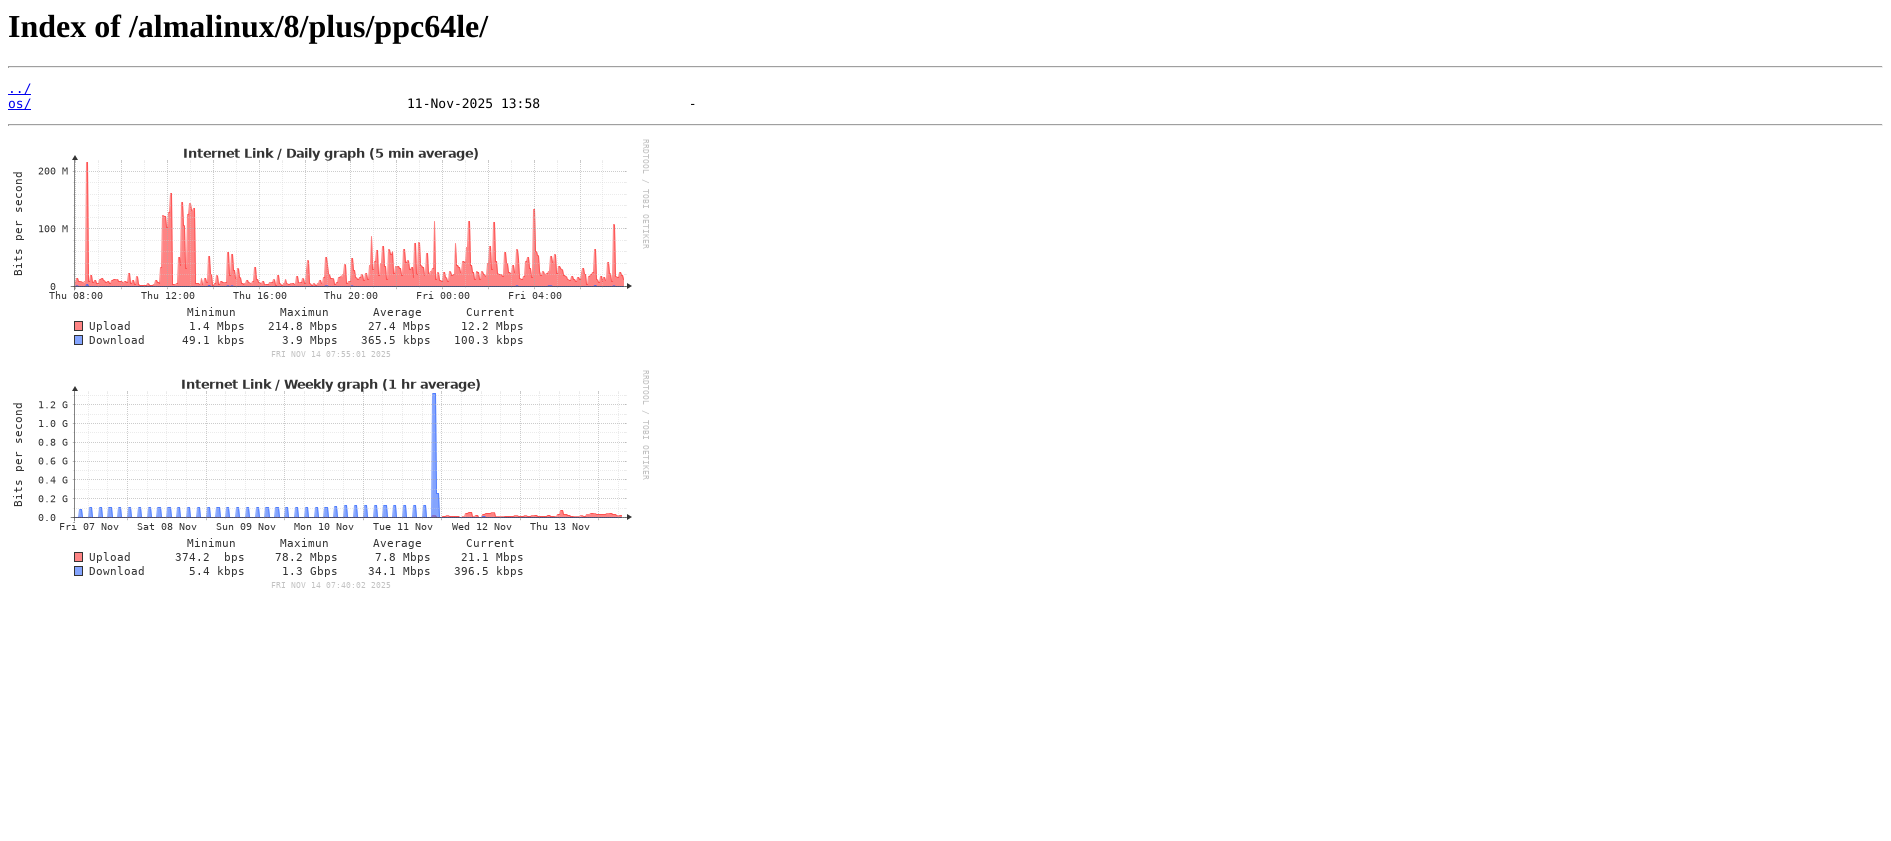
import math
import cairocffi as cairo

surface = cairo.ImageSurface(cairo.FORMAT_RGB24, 1891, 841)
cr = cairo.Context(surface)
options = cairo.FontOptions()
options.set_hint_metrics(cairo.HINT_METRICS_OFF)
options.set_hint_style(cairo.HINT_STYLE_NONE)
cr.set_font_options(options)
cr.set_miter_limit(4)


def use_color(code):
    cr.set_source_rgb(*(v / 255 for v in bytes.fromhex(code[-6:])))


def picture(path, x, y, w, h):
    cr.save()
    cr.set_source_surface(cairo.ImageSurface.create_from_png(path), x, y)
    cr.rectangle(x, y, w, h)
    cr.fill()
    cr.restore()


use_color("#ffffff")
cr.paint()
cr.select_font_face("Liberation Serif", cairo.FONT_SLANT_NORMAL, cairo.FONT_WEIGHT_BOLD)
cr.set_font_size(32)
use_color("#000000")
cr.move_to(8, 37)
cr.show_text("Index of /almalinux/8/plus/ppc64le/")
use_color("#9f9f9f")
cr.rectangle(8, 66, 1875, 1)
cr.fill()
use_color("#eeeeee")
cr.rectangle(1882, 66, 1, 2)
cr.fill()
cr.rectangle(8, 67, 1875, 1)
cr.fill()
use_color("#9f9f9f")
cr.rectangle(8, 66, 1, 2)
cr.fill()
use_color("#0000ee")
cr.rectangle(8, 94, 23, 1)
cr.fill()
cr.select_font_face("DejaVu Sans Mono")
cr.set_font_size(13)
cr.move_to(8, 93)
cr.show_text("../")
cr.rectangle(8, 109, 23, 1)
cr.fill()
cr.move_to(8, 108)
cr.show_text("os/")
use_color("#000000")
cr.move_to(407, 108)
cr.show_text("11-Nov-2025 13:58                   -")
use_color("#9f9f9f")
cr.rectangle(8, 124, 1875, 1)
cr.fill()
use_color("#eeeeee")
cr.rectangle(1882, 124, 1, 2)
cr.fill()
cr.rectangle(8, 125, 1875, 1)
cr.fill()
use_color("#9f9f9f")
cr.rectangle(8, 124, 1, 2)
cr.fill()
picture("img1.png", 13, 139, 636, 218)
picture("img2.png", 13, 370, 636, 218)
surface.write_to_png("result.png")
